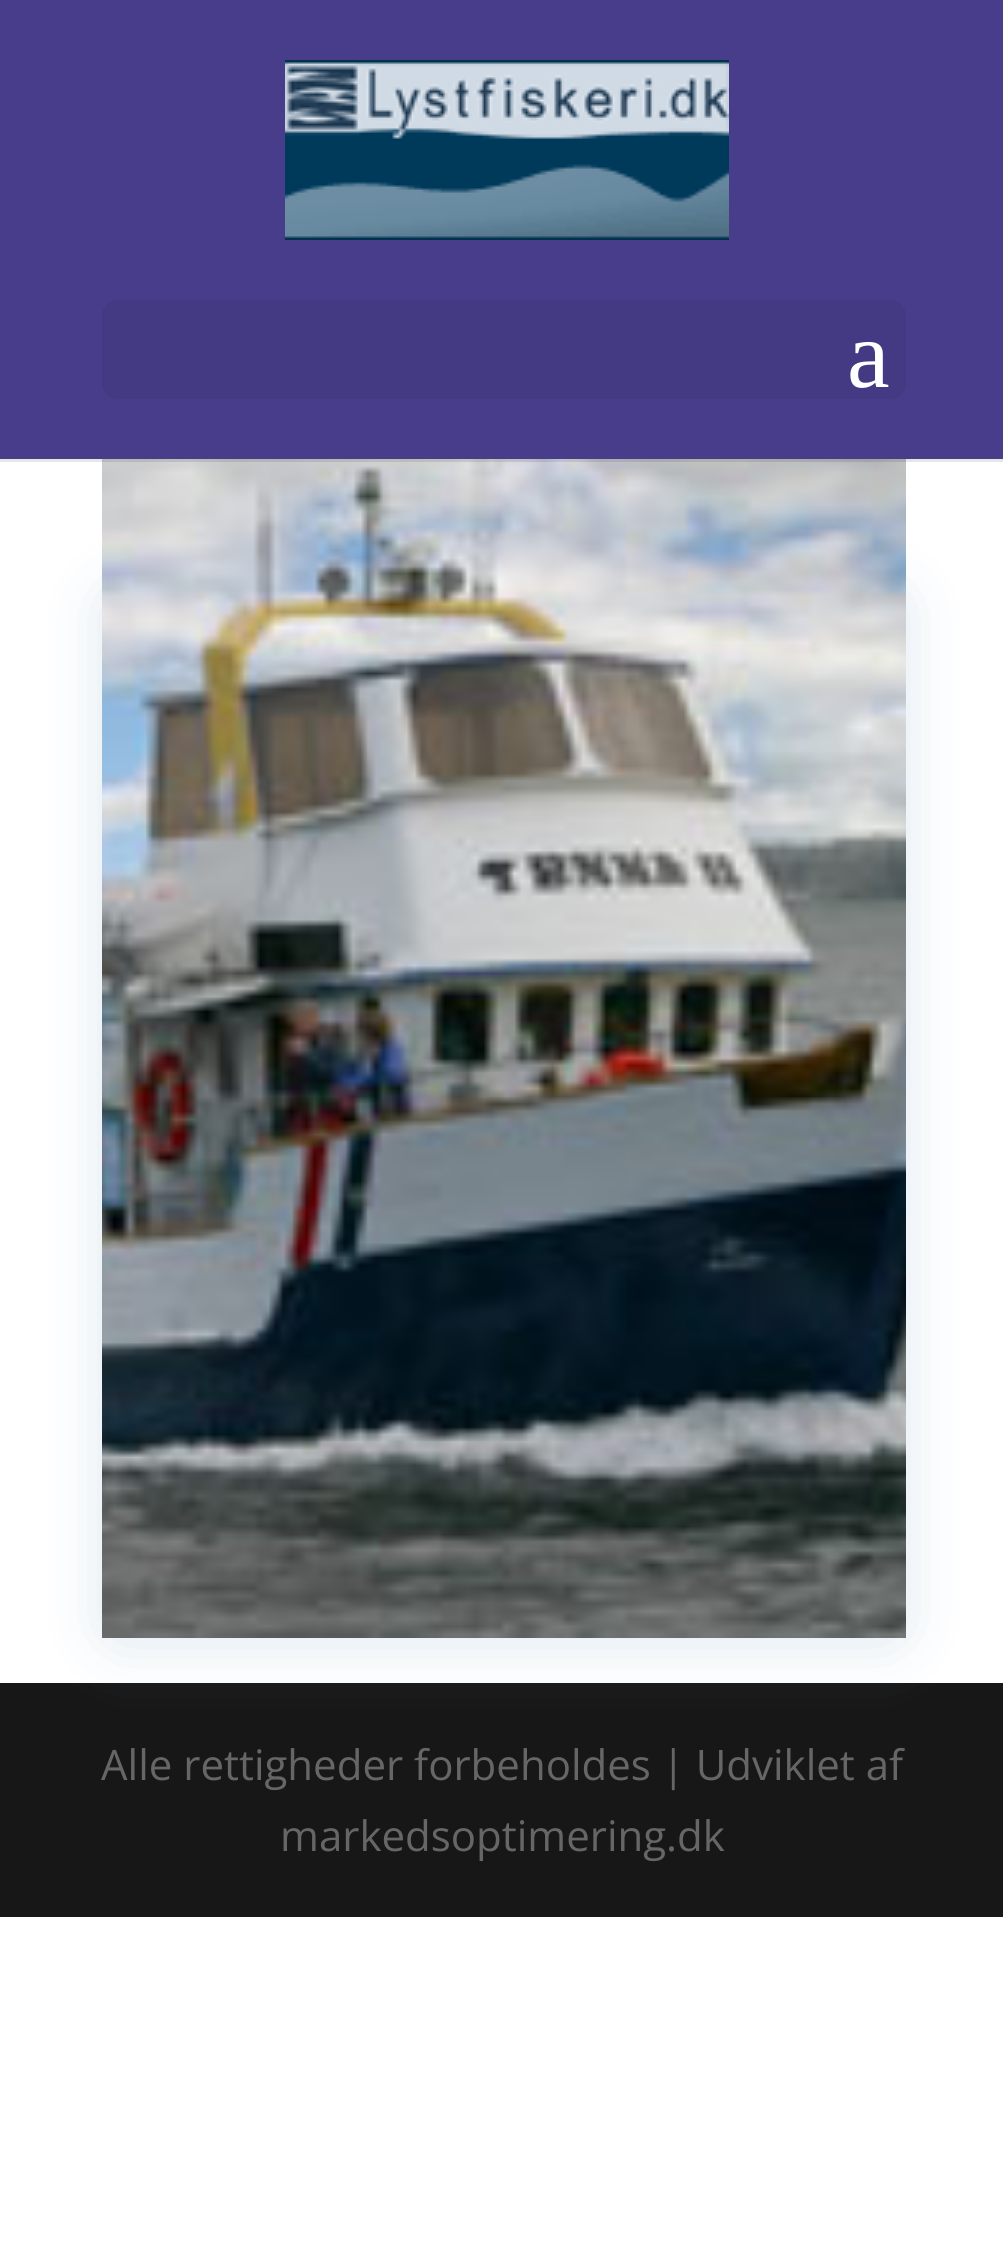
import math
import cairocffi as cairo

surface = cairo.ImageSurface(cairo.FORMAT_RGB24, 1003, 2254)
cr = cairo.Context(surface)
options = cairo.FontOptions()
options.set_hint_metrics(cairo.HINT_METRICS_OFF)
options.set_hint_style(cairo.HINT_STYLE_NONE)
cr.set_font_options(options)
cr.set_miter_limit(4)


def use_color(code):
    cr.set_source_rgb(*(v / 255 for v in bytes.fromhex(code[-6:])))


def round_rect(x, y, w, h, r):
    cr.new_sub_path()
    for i, (u, v) in enumerate([(x + w - r, y + h - r), (x + r, y + h - r), (x + r, y + r), (x + w - r, y + r)]):
        cr.arc(u, v, r, i * math.pi / 2, (i + 1) * math.pi / 2)
    cr.close_path()


def shadow(x, y, w, h, r, blur, alpha):
    cr.push_group_with_content(cairo.CONTENT_ALPHA)
    cr.set_operator(cairo.OPERATOR_SOURCE)
    for i in range(15, -16, -2):
        e = blur * i / 6
        if min(w, h) + 2 * e > 0:
            cr.set_source_rgba(0, 0, 0, alpha * math.erfc((i - 1) / 8.5) / 2)
            round_rect(x - e, y - e, w + 2 * e, h + 2 * e, max(0, min(r + e + blur * .6, min(w, h) / 2 + e)))
            cr.fill()
    cr.mask(cr.pop_group())


def picture(path, x, y, w, h):
    cr.save()
    cr.set_source_surface(cairo.ImageSurface.create_from_png(path), x, y)
    cr.rectangle(x, y, w, h)
    cr.fill()
    cr.restore()


use_color("#ffffff")
cr.paint()
use_color("#171717")
cr.rectangle(0, 1683, 1003, 234)
cr.fill()
use_color("#a0bed4")
shadow(102, 588, 804, 1056, 18, 30, 0.33)
picture("img2.png", 102, 459, 804, 1179)
cr.set_source_rgba(0, 0, 0, 0.1)
cr.rectangle(0, 459, 1003, 3)
cr.fill()
use_color("#483d8b")
cr.rectangle(0, 0, 1003, 459)
cr.fill()
picture("img1.png", 285, 60, 444, 180)
use_color("#443a84")
round_rect(102, 300, 804, 99, 15)
cr.fill()
cr.select_font_face("Liberation Serif")
cr.set_font_size(96)
use_color("#ffffff")
cr.move_to(847, 387)
cr.show_text("a")
cr.select_font_face("Open Sans")
cr.set_font_size(42)
use_color("#666666")
cr.move_to(101, 1780)
cr.show_text("Alle rettigheder forbeholdes | Udviklet af")
cr.move_to(280, 1851)
cr.show_text("markedsoptimering.dk")
surface.write_to_png("result.png")
